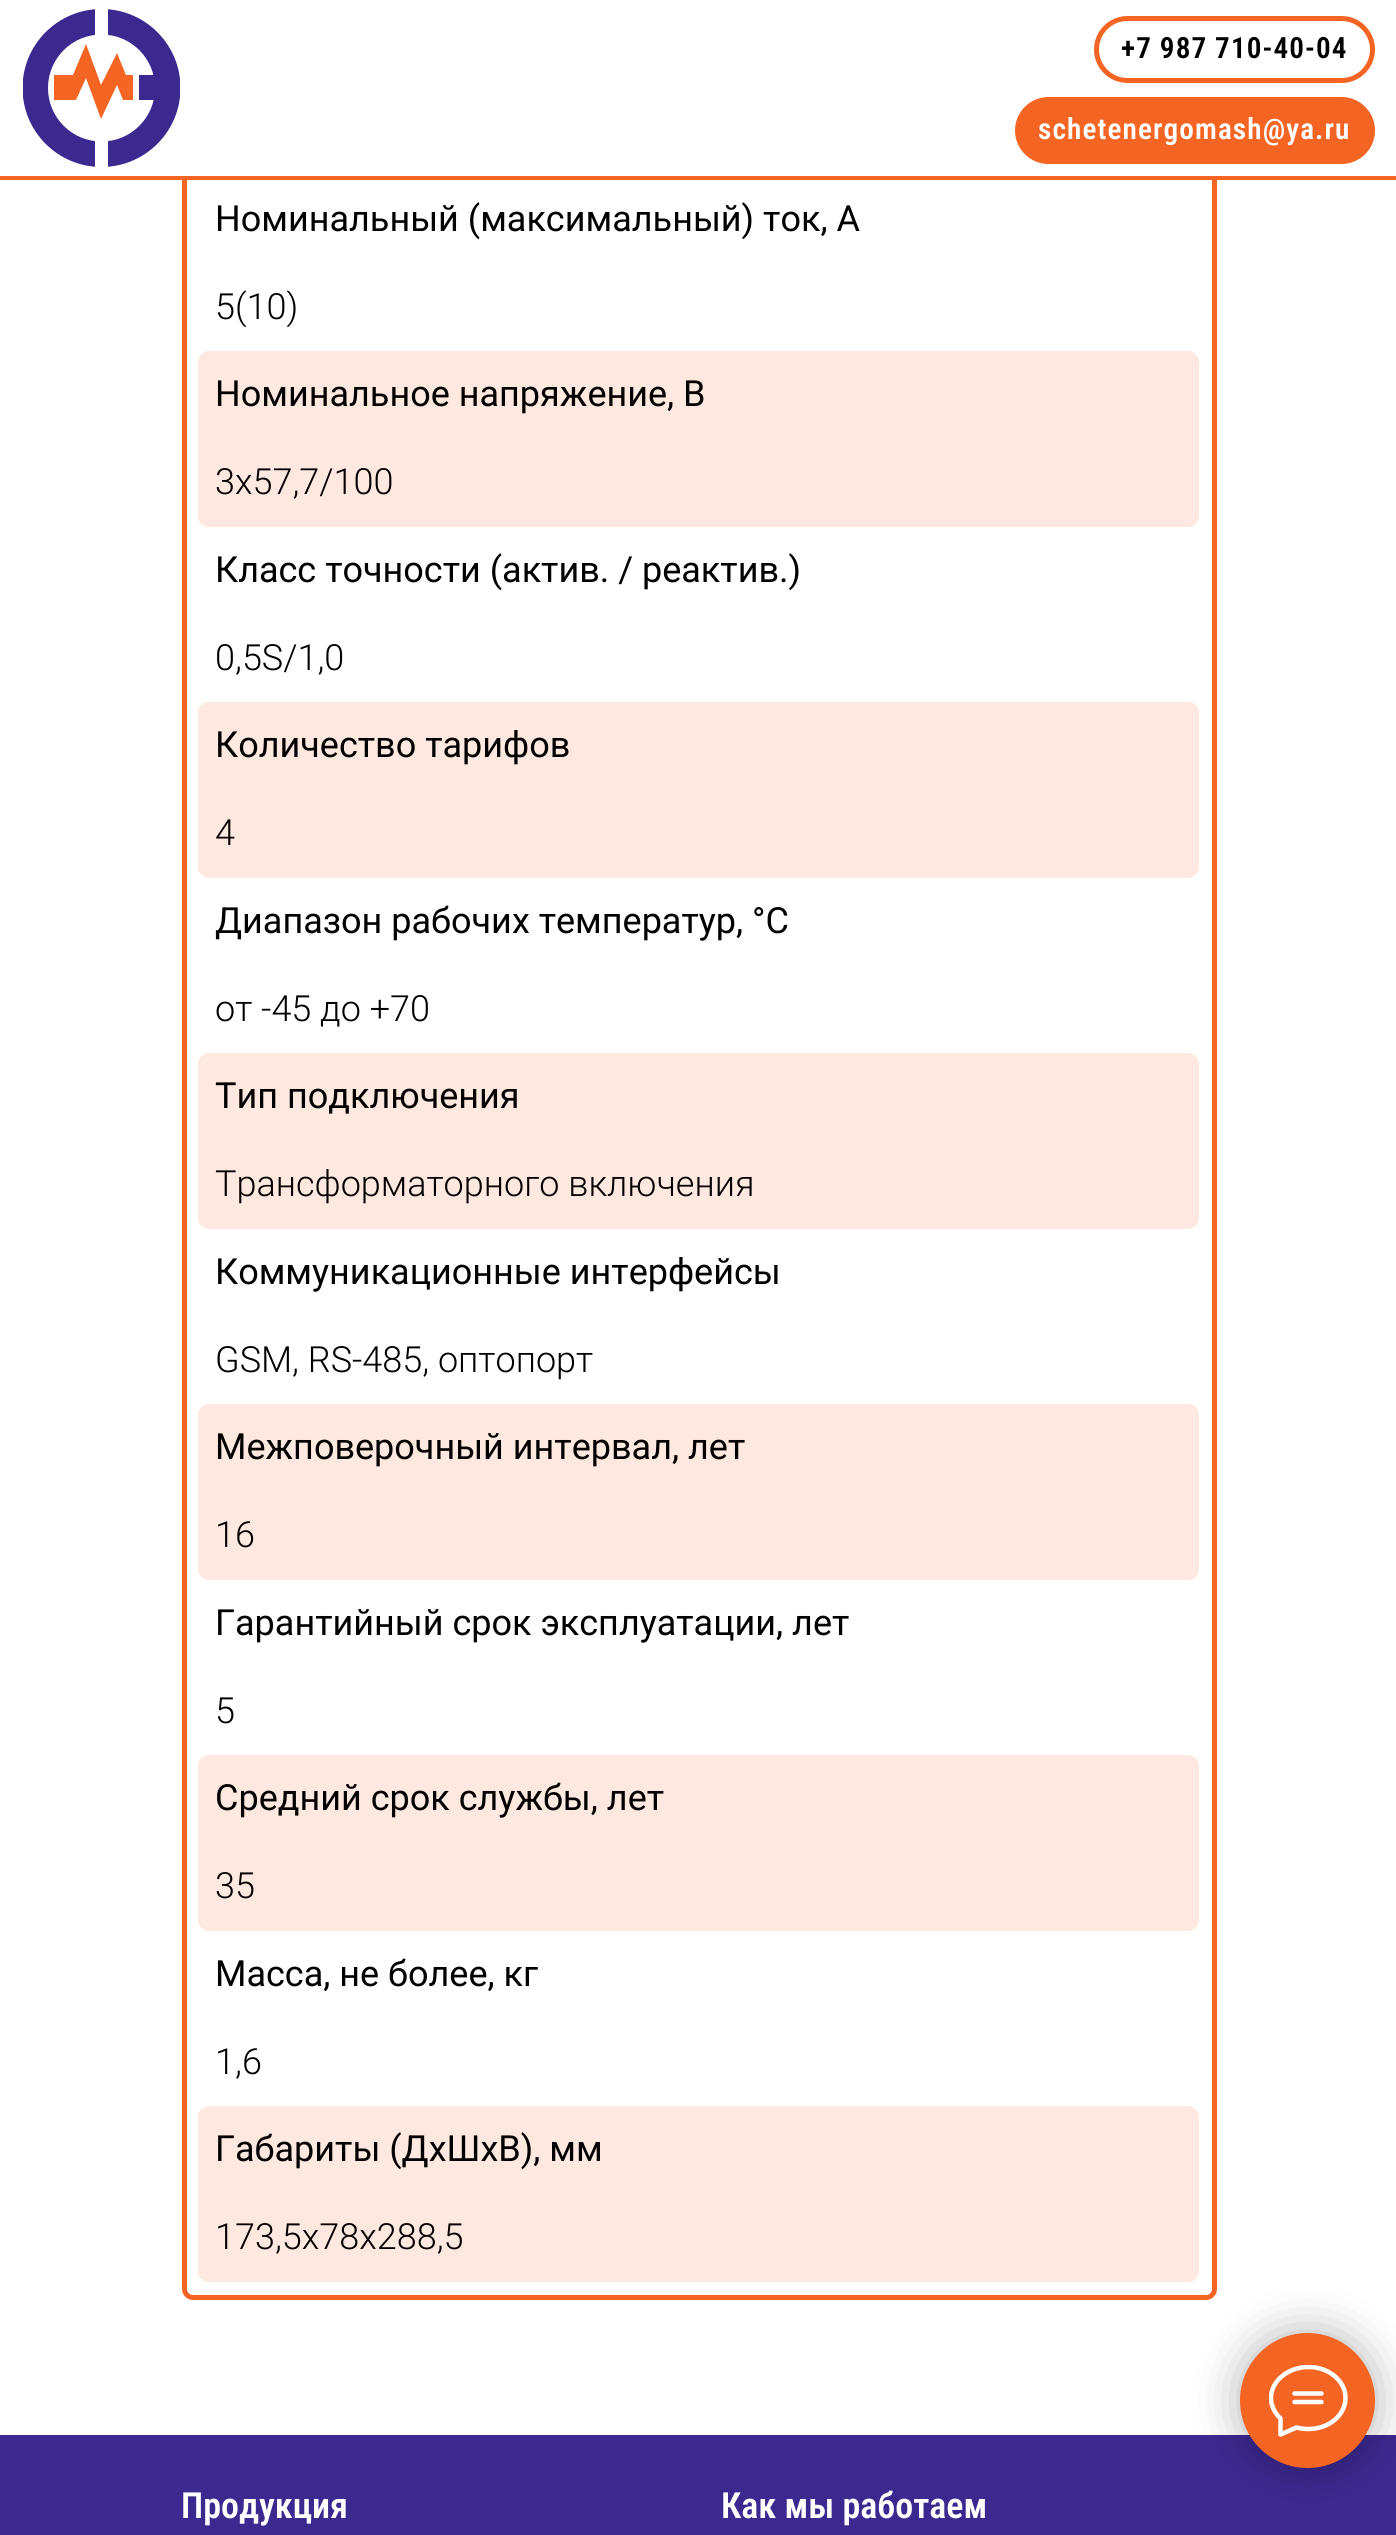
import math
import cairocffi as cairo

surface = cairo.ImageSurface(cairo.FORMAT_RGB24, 1396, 2535)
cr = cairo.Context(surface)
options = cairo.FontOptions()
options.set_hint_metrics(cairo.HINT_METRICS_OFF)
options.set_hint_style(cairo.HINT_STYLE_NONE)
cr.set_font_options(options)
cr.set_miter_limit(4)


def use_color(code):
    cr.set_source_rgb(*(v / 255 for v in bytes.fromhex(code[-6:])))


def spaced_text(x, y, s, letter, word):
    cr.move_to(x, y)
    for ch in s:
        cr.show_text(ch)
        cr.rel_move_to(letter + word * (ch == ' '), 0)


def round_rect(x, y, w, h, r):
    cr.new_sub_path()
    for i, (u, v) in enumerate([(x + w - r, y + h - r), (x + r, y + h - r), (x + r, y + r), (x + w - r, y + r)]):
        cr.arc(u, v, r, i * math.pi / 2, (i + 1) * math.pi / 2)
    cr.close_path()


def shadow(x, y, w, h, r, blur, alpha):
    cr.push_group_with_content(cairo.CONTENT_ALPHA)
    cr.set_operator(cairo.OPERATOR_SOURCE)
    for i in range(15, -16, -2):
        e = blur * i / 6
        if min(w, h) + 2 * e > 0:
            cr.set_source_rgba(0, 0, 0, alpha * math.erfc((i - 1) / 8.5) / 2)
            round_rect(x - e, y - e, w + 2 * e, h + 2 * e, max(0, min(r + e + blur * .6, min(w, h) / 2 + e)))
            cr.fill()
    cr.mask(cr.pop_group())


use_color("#ffffff")
cr.paint()
round_rect(184.5, 160.5, 1030, 2137, 8.5)
use_color("#f46524")
cr.set_line_width(5)
cr.stroke()
use_color("#ffffff")
cr.rectangle(182, 158, 1035, 18)
cr.fill()
cr.save()
cr.rectangle(23, 9, 157, 158)
cr.clip()
use_color("#3c2990")
cr.arc(101.5, 88, 79, 0, 2 * math.pi)
cr.fill()
cr.restore()
cr.arc(101.5, 88, 53.5, 0, 2 * math.pi)
cr.fill()
use_color("#3c2990")
cr.rectangle(139, 75, 16, 25)
cr.fill()
use_color("#ffffff")
cr.rectangle(95, 9, 13, 158)
cr.fill()
use_color("#f46524")
cr.new_path()
cr.move_to(133, 75)
cr.line_to(126, 75)
cr.line_to(117, 53)
cr.line_to(101, 85)
cr.line_to(86, 44)
cr.line_to(73, 75)
cr.line_to(54, 75)
cr.line_to(54, 100)
cr.line_to(76, 100)
cr.line_to(86, 78)
cr.line_to(101, 119)
cr.line_to(117, 85)
cr.line_to(123, 100)
cr.line_to(133, 100)
cr.close_path()
cr.fill()
round_rect(1096.5, 18.5, 276, 62, 31)
cr.stroke()
cr.select_font_face("Roboto Condensed SemiBold")
cr.set_font_size(29.25)
use_color("#000000")
spaced_text(1121, 58, "+7 987 710-40-04", 1.1, 0)
use_color("#f46523")
round_rect(1017.5, 99.5, 355, 62, 31)
cr.fill_preserve()
use_color("#f46524")
cr.stroke()
use_color("#ffffff")
spaced_text(1038, 139, "schetenergomash@ya.ru", 1.1, 0)
use_color("#f46523")
cr.rectangle(0, 176, 1396, 4)
cr.fill()
cr.select_font_face("Roboto")
cr.set_font_size(36)
use_color("#000000")
cr.move_to(215, 231)
cr.show_text("Номинальный (максимальный) ток, А")
cr.select_font_face("Roboto Light")
cr.move_to(215, 319)
cr.show_text("5(10)")
use_color("#fee8df")
round_rect(198, 351, 1001, 176, 11)
cr.fill()
cr.select_font_face("Roboto")
use_color("#000000")
cr.move_to(215, 406)
cr.show_text("Номинальное напряжение, В")
cr.select_font_face("Roboto Light")
cr.move_to(215, 494)
cr.show_text("3х57,7/100")
cr.select_font_face("Roboto")
cr.move_to(215, 582)
cr.show_text("Класс точности (актив. / реактив.)")
cr.select_font_face("Roboto Light")
cr.move_to(215, 670)
cr.show_text("0,5S/1,0")
use_color("#fee8df")
round_rect(198, 702, 1001, 176, 11)
cr.fill()
cr.select_font_face("Roboto")
use_color("#000000")
cr.move_to(215, 757)
cr.show_text("Количество тарифов")
cr.select_font_face("Roboto Light")
cr.move_to(215, 845)
cr.show_text("4")
cr.select_font_face("Roboto")
cr.move_to(215, 933)
cr.show_text("Диапазон рабочих температур, °С")
cr.select_font_face("Roboto Light")
cr.move_to(215, 1021)
cr.show_text("от -45 до +70")
use_color("#fee8df")
round_rect(198, 1053, 1001, 176, 11)
cr.fill()
cr.select_font_face("Roboto")
use_color("#000000")
cr.move_to(215, 1108)
cr.show_text("Тип подключения")
cr.select_font_face("Roboto Light")
cr.move_to(215, 1196)
cr.show_text("Трансформаторного включения")
cr.select_font_face("Roboto")
cr.move_to(215, 1284)
cr.show_text("Коммуникационные интерфейсы")
cr.select_font_face("Roboto Light")
cr.move_to(215, 1372)
cr.show_text("GSM, RS-485, оптопорт")
use_color("#fee8df")
round_rect(198, 1404, 1001, 176, 11)
cr.fill()
cr.select_font_face("Roboto")
use_color("#000000")
cr.move_to(215, 1459)
cr.show_text("Межповерочный интервал, лет")
cr.select_font_face("Roboto Light")
cr.move_to(215, 1547)
cr.show_text("16")
cr.select_font_face("Roboto")
cr.move_to(215, 1635)
cr.show_text("Гарантийный срок эксплуатации, лет")
cr.select_font_face("Roboto Light")
cr.move_to(215, 1723)
cr.show_text("5")
use_color("#fee8df")
round_rect(198, 1755, 1001, 176, 11)
cr.fill()
cr.select_font_face("Roboto")
use_color("#000000")
cr.move_to(215, 1810)
cr.show_text("Средний срок службы, лет")
cr.select_font_face("Roboto Light")
cr.move_to(215, 1898)
cr.show_text("35")
cr.select_font_face("Roboto")
cr.move_to(215, 1986)
cr.show_text("Масса, не более, кг")
cr.select_font_face("Roboto Light")
cr.move_to(215, 2074)
cr.show_text("1,6")
use_color("#fee8df")
round_rect(198, 2106, 1001, 176, 11)
cr.fill()
cr.select_font_face("Roboto")
use_color("#000000")
cr.move_to(215, 2161)
cr.show_text("Габариты (ДхШхВ), мм")
cr.select_font_face("Roboto Light")
cr.move_to(215, 2249)
cr.show_text("173,5x78x288,5")
use_color("#3c2990")
cr.rectangle(0, 2435, 1396, 100)
cr.fill()
cr.select_font_face("Roboto Condensed SemiBold")
use_color("#ffffff")
cr.move_to(181, 2518)
cr.show_text("Продукция")
cr.move_to(721, 2518)
cr.show_text("Как мы работаем")
use_color("#000000")
shadow(1240, 2333, 135, 135, 67.5, 22.5, 0.3)
use_color("#f46524")
cr.arc(1307.5, 2400.5, 67.5, 0, 2 * math.pi)
cr.fill()
cr.save()
cr.rectangle(1269, 2365, 79, 72)
cr.clip()
cr.new_path()
cr.move_to(1294.5, 2393.5)
cr.line_to(1321.5, 2393.5)
cr.move_to(1294.5, 2402)
cr.line_to(1321.5, 2402)
cr.move_to(1280, 2418)
cr.curve_to(1274.5, 2412.5, 1271, 2405.5, 1271, 2398)
cr.curve_to(1271, 2381, 1288, 2367, 1308.5, 2367)
cr.curve_to(1329, 2367, 1345.5, 2381, 1345.5, 2398)
cr.curve_to(1345.5, 2415, 1329, 2429, 1308.5, 2429)
cr.curve_to(1304, 2429, 1300, 2428.5, 1296.5, 2427.5)
cr.line_to(1280.5, 2434.5)
cr.line_to(1280.5, 2418.5)
cr.close_path()
use_color("#ffffff")
cr.set_line_width(4.5)
cr.set_line_cap(cairo.LINE_CAP_ROUND)
cr.set_line_join(cairo.LINE_JOIN_ROUND)
cr.stroke()
cr.restore()
surface.write_to_png("result.png")
